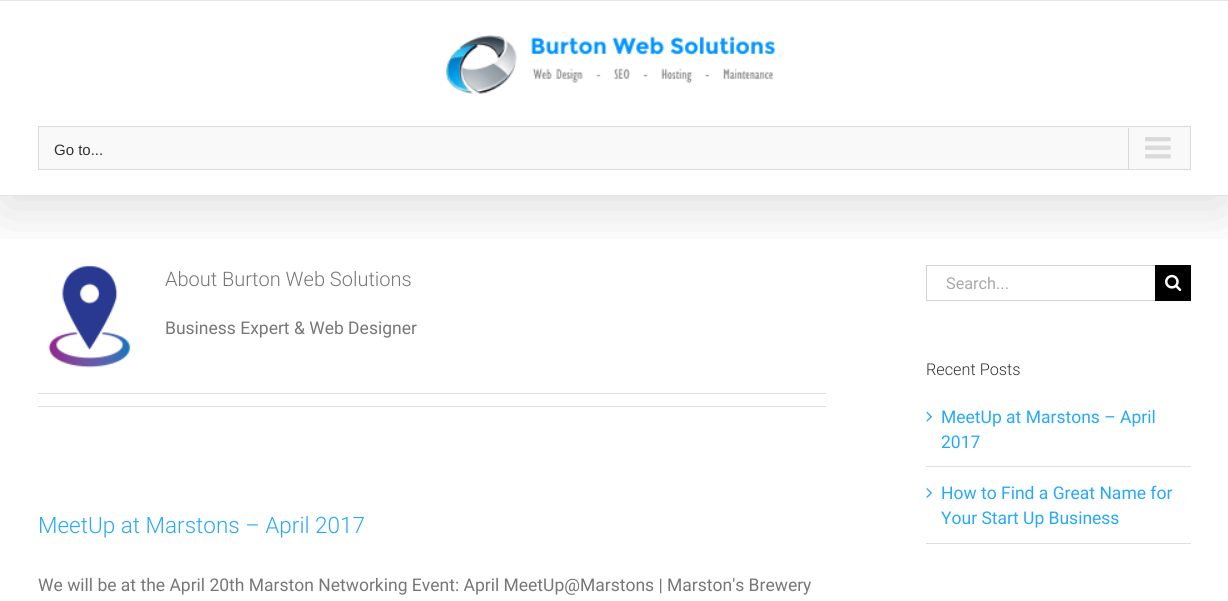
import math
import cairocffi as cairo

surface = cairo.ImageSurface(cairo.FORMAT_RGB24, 1228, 601)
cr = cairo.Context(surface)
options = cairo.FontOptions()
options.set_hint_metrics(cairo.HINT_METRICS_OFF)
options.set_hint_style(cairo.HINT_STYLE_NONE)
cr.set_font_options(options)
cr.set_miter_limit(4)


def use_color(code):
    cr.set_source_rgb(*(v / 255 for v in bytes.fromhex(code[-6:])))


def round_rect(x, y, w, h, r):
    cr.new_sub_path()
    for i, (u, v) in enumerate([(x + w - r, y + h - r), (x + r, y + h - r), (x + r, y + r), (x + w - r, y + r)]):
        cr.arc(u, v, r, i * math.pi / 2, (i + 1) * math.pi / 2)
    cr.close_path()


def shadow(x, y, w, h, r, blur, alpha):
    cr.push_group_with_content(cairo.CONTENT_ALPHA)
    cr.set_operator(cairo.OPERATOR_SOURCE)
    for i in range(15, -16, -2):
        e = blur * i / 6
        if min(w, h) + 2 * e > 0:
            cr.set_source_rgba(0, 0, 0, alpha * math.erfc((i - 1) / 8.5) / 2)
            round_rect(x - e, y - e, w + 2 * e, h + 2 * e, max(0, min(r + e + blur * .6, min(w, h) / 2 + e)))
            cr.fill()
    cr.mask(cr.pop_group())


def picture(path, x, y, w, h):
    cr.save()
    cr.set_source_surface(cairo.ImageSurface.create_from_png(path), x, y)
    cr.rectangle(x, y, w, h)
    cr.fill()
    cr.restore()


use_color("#ffffff")
cr.paint()
picture("img3.png", 48, 265, 83, 103)
use_color("#d2d2d2")
cr.rectangle(926, 265, 229, 1)
cr.fill()
cr.rectangle(926, 300, 229, 1)
cr.fill()
cr.rectangle(926, 265, 1, 36)
cr.fill()
use_color("#000000")
cr.rectangle(1155, 265, 36, 36)
cr.fill()
picture("img4.png", 1165, 274, 17, 17)
cr.save()
cr.rectangle(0, 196, 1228, 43)
cr.clip()
use_color("#000000")
shadow(3, -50, 1223, 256, 0, 31, 0.14)
cr.restore()
use_color("#e5e5e5")
cr.rectangle(0, 0, 1228, 1)
cr.fill()
cr.rectangle(0, 195, 1228, 1)
cr.fill()
picture("img1.png", 445, 35, 331, 59)
use_color("#f9f9f9")
cr.rectangle(38.5, 126.5, 1152, 43)
cr.fill_preserve()
use_color("#dadada")
cr.set_line_width(1)
cr.stroke()
cr.select_font_face("Liberation Sans")
cr.set_font_size(15)
use_color("#333333")
cr.move_to(54, 155)
cr.show_text("Go to...")
use_color("#dadada")
cr.rectangle(1128, 128, 1, 41)
cr.fill()
picture("img2.png", 1145, 137, 26, 22)
cr.select_font_face("Roboto Light")
cr.set_font_size(20)
use_color("#777777")
cr.move_to(165, 286)
cr.show_text("About Burton Web Solutions")
cr.select_font_face("Roboto")
cr.set_font_size(17.5)
cr.move_to(165, 334)
cr.show_text("Business Expert & Web Designer")
use_color("#e0dede")
cr.rectangle(38, 393, 788, 1)
cr.fill()
cr.rectangle(38, 406, 788, 1)
cr.fill()
cr.select_font_face("Roboto Light")
cr.set_font_size(22.5)
use_color("#27a9f9")
cr.move_to(38, 533)
cr.show_text("MeetUp at Marstons – April 2017")
cr.select_font_face("Roboto")
cr.set_font_size(17.5)
use_color("#777777")
cr.move_to(38, 591)
cr.show_text("We will be at the April 20th Marston Networking Event: April MeetUp@Marstons | Marston's Brewery")
cr.set_font_size(16.25)
use_color("#aaa9a9")
cr.move_to(946, 289)
cr.show_text("Search...")
cr.select_font_face("Roboto Light")
use_color("#333333")
cr.move_to(926, 375)
cr.show_text("Recent Posts")
use_color("#e0dede")
cr.rectangle(926, 466, 265, 1)
cr.fill()
picture("img5.png", 926, 411, 6, 11)
cr.select_font_face("Roboto")
cr.set_font_size(17.5)
use_color("#27a9f9")
cr.move_to(941, 423)
cr.show_text("MeetUp at Marstons – April")
cr.move_to(941, 448)
cr.show_text("2017")
use_color("#e0dede")
cr.rectangle(926, 543, 265, 1)
cr.fill()
picture("img6.png", 926, 488, 6, 10)
use_color("#27a9f9")
cr.move_to(941, 499)
cr.show_text("How to Find a Great Name for")
cr.move_to(941, 524)
cr.show_text("Your Start Up Business")
surface.write_to_png("result.png")
